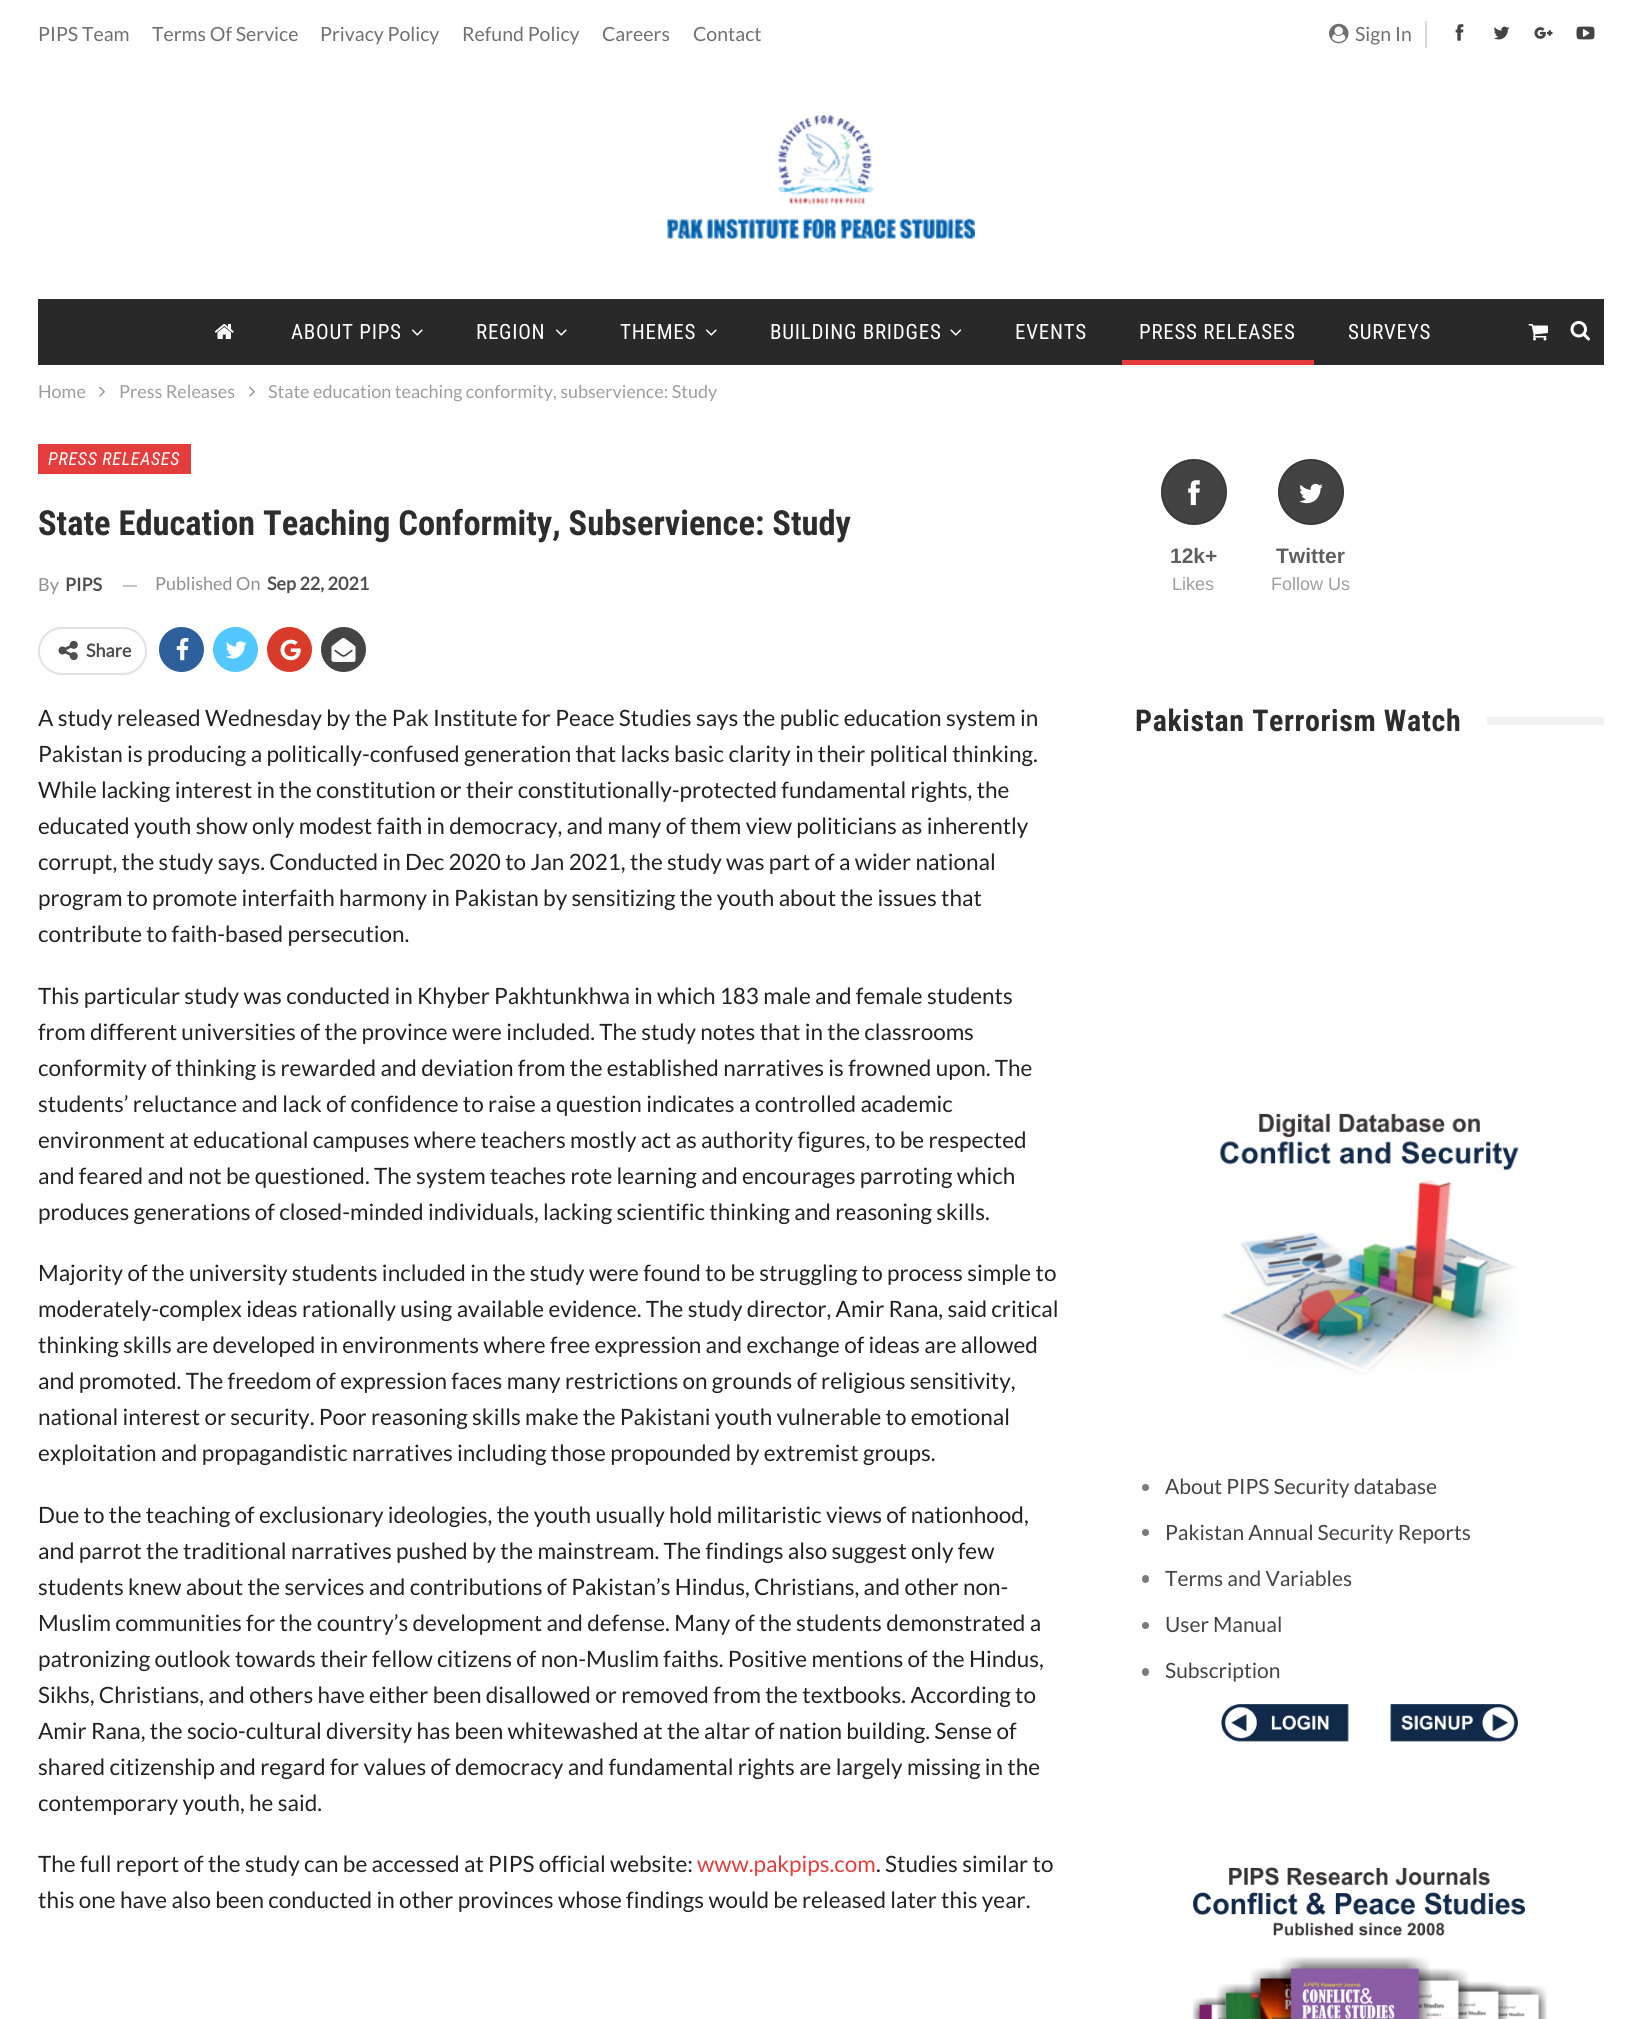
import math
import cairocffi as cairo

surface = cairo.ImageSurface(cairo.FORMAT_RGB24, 1641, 2019)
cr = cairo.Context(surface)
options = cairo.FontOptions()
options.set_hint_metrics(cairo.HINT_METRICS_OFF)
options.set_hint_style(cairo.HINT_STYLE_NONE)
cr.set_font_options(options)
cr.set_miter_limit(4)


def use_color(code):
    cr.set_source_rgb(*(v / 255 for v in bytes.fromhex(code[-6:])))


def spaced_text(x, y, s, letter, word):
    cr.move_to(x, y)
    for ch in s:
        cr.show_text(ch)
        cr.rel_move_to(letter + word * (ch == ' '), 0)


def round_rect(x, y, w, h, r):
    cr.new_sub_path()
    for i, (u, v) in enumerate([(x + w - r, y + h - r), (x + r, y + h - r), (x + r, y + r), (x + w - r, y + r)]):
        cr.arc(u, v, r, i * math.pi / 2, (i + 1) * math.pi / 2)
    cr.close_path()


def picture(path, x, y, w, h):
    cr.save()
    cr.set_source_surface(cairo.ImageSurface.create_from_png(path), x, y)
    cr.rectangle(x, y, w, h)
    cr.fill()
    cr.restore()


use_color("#ffffff")
cr.paint()
cr.select_font_face("Lato")
cr.set_font_size(19.5)
use_color("#707070")
cr.move_to(38, 41)
cr.show_text("PIPS Team")
cr.move_to(152, 41)
cr.show_text("Terms Of Service")
cr.move_to(320, 41)
cr.show_text("Privacy Policy")
cr.move_to(462, 41)
cr.show_text("Refund Policy")
cr.move_to(602, 41)
cr.show_text("Careers")
cr.move_to(693, 41)
cr.show_text("Contact")
picture("img1.png", 1329, 23, 20, 21)
cr.move_to(1355, 41)
cr.show_text("Sign In")
use_color("#d9d9d9")
cr.rectangle(1425, 21, 2, 27)
cr.fill()
picture("img2.png", 1455, 24, 9, 17)
picture("img3.png", 1493, 26, 17, 14)
picture("img4.png", 1534, 27, 19, 12)
picture("img5.png", 1576, 26, 19, 14)
picture("img6.png", 667, 115, 308, 124)
use_color("#292929")
cr.rectangle(38, 299, 1566, 66)
cr.fill()
picture("img7.png", 214, 324, 20, 15)
cr.select_font_face("Roboto Condensed")
cr.set_font_size(21)
use_color("#ffffff")
spaced_text(291, 339, "ABOUT PIPS", 0.75, 0)
picture("img8.png", 411, 329, 12, 7)
spaced_text(476, 339, "REGION", 0.75, 0)
picture("img8.png", 555, 329, 12, 7)
spaced_text(620, 339, "THEMES", 0.75, 0)
picture("img8.png", 705, 329, 12, 7)
spaced_text(770, 339, "BUILDING BRIDGES", 0.75, 0)
picture("img9.png", 950, 329, 12, 7)
spaced_text(1015, 339, "EVENTS", 0.75, 0)
spaced_text(1139, 339, "PRESS RELEASES", 0.75, 0)
use_color("#e33d3d")
cr.rectangle(1122, 360, 192, 5)
cr.fill()
use_color("#ffffff")
spaced_text(1348, 339, "SURVEYS", 0.75, 0)
picture("img10.png", 1528, 324, 20, 17)
picture("img11.png", 1570, 321, 20, 20)
cr.select_font_face("Lato")
cr.set_font_size(18)
use_color("#9e9e9e")
cr.move_to(38, 398)
cr.show_text("Home")
picture("img12.png", 99, 386, 6, 11)
cr.move_to(119, 398)
cr.show_text("Press Releases")
picture("img12.png", 249, 386, 6, 11)
cr.move_to(268, 398)
cr.show_text("State education teaching conformity, subservience: Study")
use_color("#e33d3d")
cr.rectangle(38, 444, 153, 30)
cr.fill()
cr.select_font_face("Roboto Condensed", cairo.FONT_SLANT_ITALIC)
use_color("#ffffff")
spaced_text(48, 465, "PRESS RELEASES", 0.75, 0)
cr.select_font_face("Roboto Condensed", cairo.FONT_SLANT_NORMAL, cairo.FONT_WEIGHT_BOLD)
cr.set_font_size(34.5)
use_color("#2d2d2d")
cr.move_to(38, 535)
cr.show_text("State Education Teaching Conformity, Subservience: Study")
cr.select_font_face("Lato")
cr.set_font_size(18)
use_color("#8f8f8f")
cr.move_to(38, 591)
cr.show_text("By")
cr.select_font_face("Lato", cairo.FONT_SLANT_NORMAL, cairo.FONT_WEIGHT_BOLD)
use_color("#4d4d4d")
cr.move_to(65, 591)
cr.show_text("PIPS")
use_color("#c4c4c4")
cr.rectangle(123, 585, 14, 2)
cr.fill()
cr.select_font_face("Lato")
use_color("#8f8f8f")
cr.move_to(155, 590)
cr.show_text("Published On")
cr.select_font_face("Lato", cairo.FONT_SLANT_NORMAL, cairo.FONT_WEIGHT_BOLD)
use_color("#4d4d4d")
cr.move_to(267, 590)
cr.show_text("Sep 22, 2021")
round_rect(39, 628, 107, 46, 23)
use_color("#e2e2e2")
cr.stroke()
picture("img13.png", 58, 640, 20, 21)
use_color("#4d4d4d")
cr.move_to(86, 657)
cr.show_text("Share")
use_color("#2d5f9a")
cr.new_path()
cr.arc(181.5, 649.5, 22.5, 0, 2 * math.pi)
cr.fill()
picture("img14.png", 176, 637, 13, 24)
use_color("#53c7ff")
cr.arc(235.5, 649.5, 22.5, 0, 2 * math.pi)
cr.fill()
picture("img15.png", 225, 641, 22, 18)
use_color("#d93b2b")
cr.arc(289.5, 649.5, 22.5, 0, 2 * math.pi)
cr.fill()
picture("img16.png", 280, 639, 21, 22)
use_color("#444444")
cr.arc(343.5, 649.5, 22.5, 0, 2 * math.pi)
cr.fill()
picture("img17.png", 331, 638, 25, 24)
cr.select_font_face("Lato")
cr.set_font_size(22.5)
use_color("#222222")
cr.move_to(38, 726)
cr.show_text("A study released Wednesday by the Pak Institute for Peace Studies says the public education system in")
cr.move_to(38, 762)
cr.show_text("Pakistan is producing a politically-confused generation that lacks basic clarity in their political thinking.")
cr.move_to(38, 798)
cr.show_text("While lacking interest in the constitution or their constitutionally-protected fundamental rights, the")
cr.move_to(38, 834)
cr.show_text("educated youth show only modest faith in democracy, and many of them view politicians as inherently")
cr.move_to(38, 870)
cr.show_text("corrupt, the study says. Conducted in Dec 2020 to Jan 2021, the study was part of a wider national")
cr.move_to(38, 906)
cr.show_text("program to promote interfaith harmony in Pakistan by sensitizing the youth about the issues that")
cr.move_to(38, 942)
cr.show_text("contribute to faith-based persecution.")
cr.move_to(38, 1004)
cr.show_text("This particular study was conducted in Khyber Pakhtunkhwa in which 183 male and female students")
cr.move_to(38, 1040)
cr.show_text("from different universities of the province were included. The study notes that in the classrooms")
cr.move_to(38, 1076)
cr.show_text("conformity of thinking is rewarded and deviation from the established narratives is frowned upon. The")
cr.move_to(38, 1112)
cr.show_text("students’ reluctance and lack of confidence to raise a question indicates a controlled academic")
cr.move_to(38, 1148)
cr.show_text("environment at educational campuses where teachers mostly act as authority figures, to be respected")
cr.move_to(38, 1184)
cr.show_text("and feared and not be questioned. The system teaches rote learning and encourages parroting which")
cr.move_to(38, 1220)
cr.show_text("produces generations of closed-minded individuals, lacking scientific thinking and reasoning skills.")
cr.move_to(38, 1281)
cr.show_text("Majority of the university students included in the study were found to be struggling to process simple to")
cr.move_to(38, 1317)
cr.show_text("moderately-complex ideas rationally using available evidence. The study director, Amir Rana, said critical")
cr.move_to(38, 1353)
cr.show_text("thinking skills are developed in environments where free expression and exchange of ideas are allowed")
cr.move_to(38, 1389)
cr.show_text("and promoted. The freedom of expression faces many restrictions on grounds of religious sensitivity,")
cr.move_to(38, 1425)
cr.show_text("national interest or security. Poor reasoning skills make the Pakistani youth vulnerable to emotional")
cr.move_to(38, 1461)
cr.show_text("exploitation and propagandistic narratives including those propounded by extremist groups.")
cr.move_to(38, 1523)
cr.show_text("Due to the teaching of exclusionary ideologies, the youth usually hold militaristic views of nationhood,")
cr.move_to(38, 1559)
cr.show_text("and parrot the traditional narratives pushed by the mainstream. The findings also suggest only few")
cr.move_to(38, 1595)
cr.show_text("students knew about the services and contributions of Pakistan’s Hindus, Christians, and other non-")
cr.move_to(38, 1631)
cr.show_text("Muslim communities for the country’s development and defense. Many of the students demonstrated a")
cr.move_to(38, 1667)
cr.show_text("patronizing outlook towards their fellow citizens of non-Muslim faiths. Positive mentions of the Hindus,")
cr.move_to(38, 1703)
cr.show_text("Sikhs, Christians, and others have either been disallowed or removed from the textbooks. According to")
cr.move_to(38, 1739)
cr.show_text("Amir Rana, the socio-cultural diversity has been whitewashed at the altar of nation building. Sense of")
cr.move_to(38, 1775)
cr.show_text("shared citizenship and regard for values of democracy and fundamental rights are largely missing in the")
cr.move_to(38, 1811)
cr.show_text("contemporary youth, he said.")
cr.move_to(38, 1872)
cr.show_text("The full report of the study can be accessed at PIPS official website:")
use_color("#e33d3d")
cr.move_to(697, 1872)
cr.show_text("www.pakpips.com")
use_color("#222222")
cr.move_to(876, 1872)
cr.show_text(". Studies similar to")
cr.move_to(38, 1908)
cr.show_text("this one have also been conducted in other provinces whose findings would be released later this year.")
use_color("#434343")
cr.new_path()
cr.arc(1194, 492, 33, 0, 2 * math.pi)
cr.fill()
cr.arc(1194, 492, 32, 0, 2 * math.pi)
cr.set_source_rgba(0, 0, 0, 0.15)
cr.stroke()
picture("img18.png", 1188, 480, 12, 26)
cr.select_font_face("Liberation Sans", cairo.FONT_SLANT_NORMAL, cairo.FONT_WEIGHT_BOLD)
cr.set_font_size(21)
use_color("#5f5f5f")
cr.move_to(1170, 563)
cr.show_text("12k+")
cr.select_font_face("Liberation Sans")
cr.set_font_size(18)
use_color("#9e9e9e")
cr.move_to(1172, 590)
cr.show_text("Likes")
use_color("#434343")
cr.new_path()
cr.arc(1311, 492, 33, 0, 2 * math.pi)
cr.fill()
cr.arc(1311, 492, 32, 0, 2 * math.pi)
cr.set_source_rgba(0, 0, 0, 0.15)
cr.stroke()
picture("img19.png", 1299, 483, 24, 21)
cr.select_font_face("Liberation Sans", cairo.FONT_SLANT_NORMAL, cairo.FONT_WEIGHT_BOLD)
cr.set_font_size(21)
use_color("#5f5f5f")
cr.move_to(1276, 563)
cr.show_text("Twitter")
cr.select_font_face("Liberation Sans")
cr.set_font_size(18)
use_color("#9e9e9e")
cr.move_to(1271, 590)
cr.show_text("Follow Us")
cr.select_font_face("Roboto Condensed", cairo.FONT_SLANT_NORMAL, cairo.FONT_WEIGHT_BOLD)
cr.set_font_size(30)
use_color("#2d2d2d")
spaced_text(1135, 731, "Pakistan Terrorism Watch", 0.6, 0)
use_color("#f2f2f2")
cr.rectangle(1487, 717, 117, 8)
cr.fill()
picture("img20.png", 1220, 1113, 299, 262)
use_color("#7b7b7b")
cr.arc(1145.5, 1487.5, 3.5, 0, 2 * math.pi)
cr.fill()
cr.select_font_face("Lato")
cr.set_font_size(21)
use_color("#444444")
cr.move_to(1165, 1494)
cr.show_text("About PIPS Security database")
use_color("#7b7b7b")
cr.new_path()
cr.arc(1145.5, 1532.5, 3.5, 0, 2 * math.pi)
cr.fill()
use_color("#444444")
cr.move_to(1165, 1540)
cr.show_text("Pakistan Annual Security Reports")
use_color("#7b7b7b")
round_rect(1142, 1575, 7, 8, 3.5)
cr.fill()
use_color("#444444")
cr.move_to(1165, 1586)
cr.show_text("Terms and Variables")
use_color("#7b7b7b")
cr.new_path()
cr.arc(1145.5, 1625.5, 3.5, 0, 2 * math.pi)
cr.fill()
use_color("#444444")
cr.move_to(1165, 1632)
cr.show_text("User Manual")
use_color("#7b7b7b")
round_rect(1142, 1668, 7, 8, 3.5)
cr.fill()
use_color("#444444")
cr.move_to(1165, 1678)
cr.show_text("Subscription")
picture("img21.png", 1221, 1704, 128, 38)
picture("img22.png", 1390, 1704, 128, 38)
picture("img23.png", 1192, 1867, 355, 152)
surface.write_to_png("result.png")
